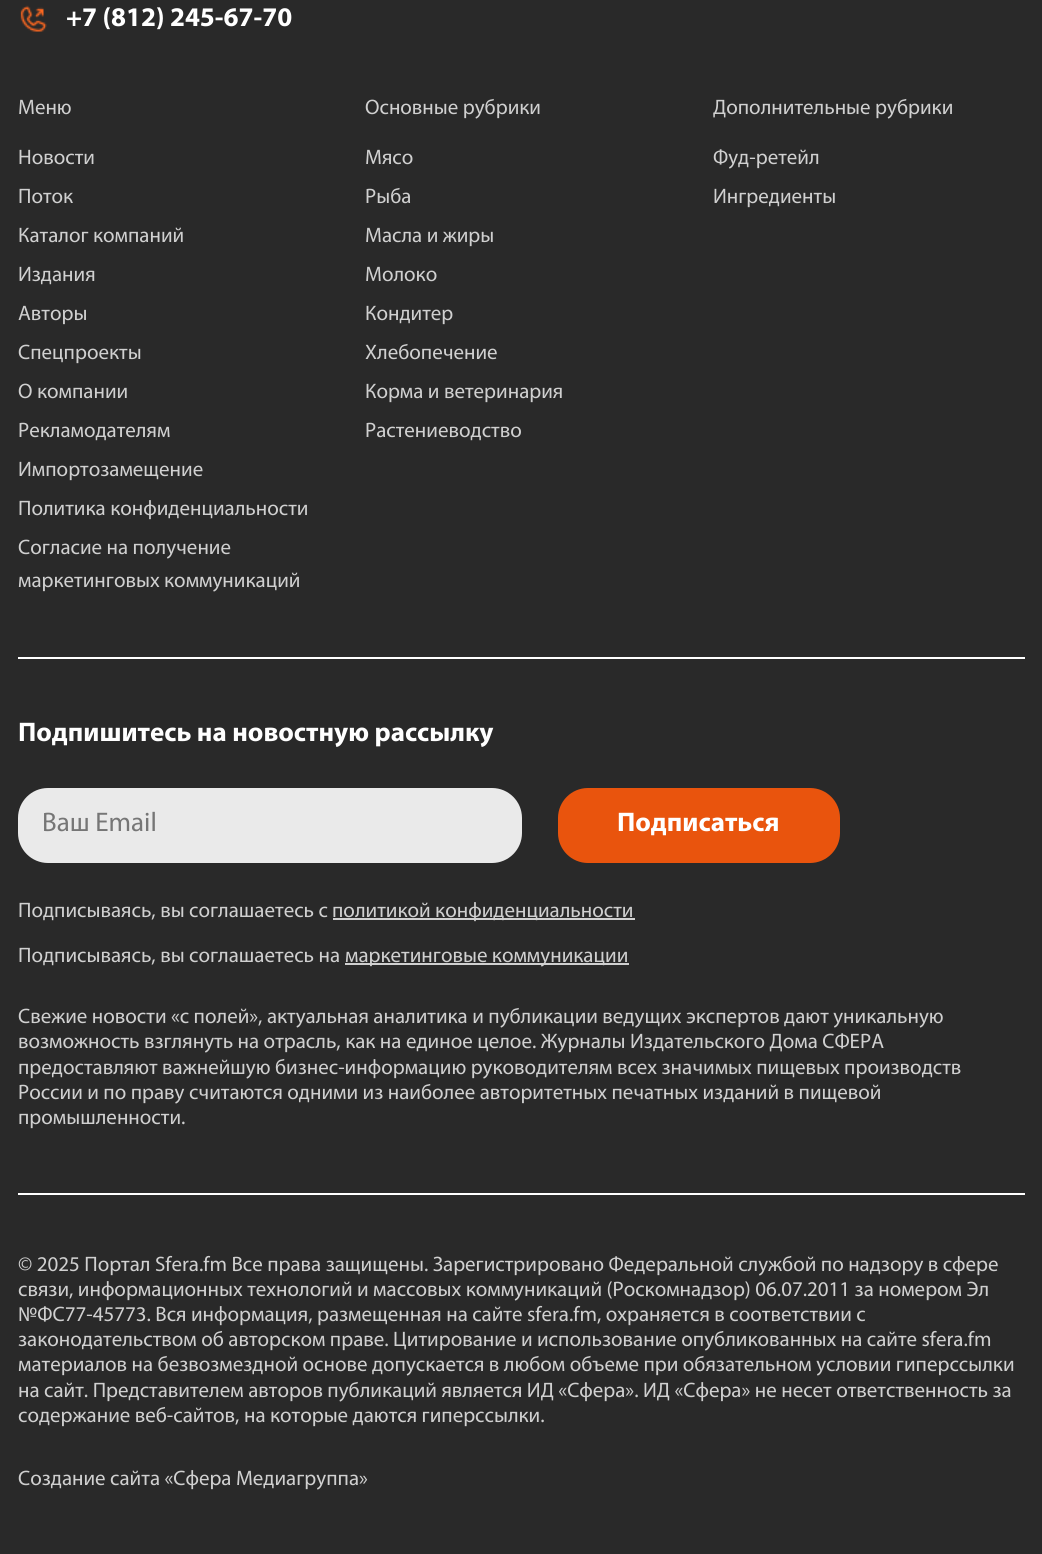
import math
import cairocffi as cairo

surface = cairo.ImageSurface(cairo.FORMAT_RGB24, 1042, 1554)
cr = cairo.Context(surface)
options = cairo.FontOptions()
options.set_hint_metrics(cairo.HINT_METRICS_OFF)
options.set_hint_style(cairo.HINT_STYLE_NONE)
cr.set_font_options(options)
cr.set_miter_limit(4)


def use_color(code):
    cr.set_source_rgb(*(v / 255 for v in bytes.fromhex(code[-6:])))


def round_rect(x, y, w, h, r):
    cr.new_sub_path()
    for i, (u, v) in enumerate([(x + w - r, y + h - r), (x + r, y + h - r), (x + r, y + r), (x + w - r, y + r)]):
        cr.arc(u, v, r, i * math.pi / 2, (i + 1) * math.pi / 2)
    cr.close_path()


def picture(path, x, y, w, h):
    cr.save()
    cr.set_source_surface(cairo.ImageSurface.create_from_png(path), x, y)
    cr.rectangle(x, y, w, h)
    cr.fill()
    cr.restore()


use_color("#292929")
cr.paint()
picture("img1.png", 20, 5, 27, 27)
cr.select_font_face("Myriad", cairo.FONT_SLANT_NORMAL, cairo.FONT_WEIGHT_BOLD)
cr.set_font_size(27)
use_color("#ffffff")
cr.move_to(66, 26)
cr.show_text("+7 (812) 245-67-70")
cr.select_font_face("Myriad")
cr.set_font_size(21)
use_color("#d0d0d0")
cr.move_to(18, 114)
cr.show_text("Меню")
cr.move_to(18, 164)
cr.show_text("Новости")
cr.move_to(18, 203)
cr.show_text("Поток")
cr.move_to(18, 242)
cr.show_text("Каталог компаний")
cr.move_to(18, 281)
cr.show_text("Издания")
cr.move_to(18, 320)
cr.show_text("Авторы")
cr.move_to(18, 359)
cr.show_text("Спецпроекты")
cr.move_to(18, 398)
cr.show_text("О компании")
cr.move_to(18, 437)
cr.show_text("Рекламодателям")
cr.move_to(18, 476)
cr.show_text("Импортозамещение")
cr.move_to(18, 515)
cr.show_text("Политика конфиденциальности")
cr.move_to(18, 554)
cr.show_text("Согласие на получение")
cr.move_to(18, 587)
cr.show_text("маркетинговых коммуникаций")
cr.move_to(365, 114)
cr.show_text("Основные рубрики")
cr.move_to(365, 164)
cr.show_text("Мясо")
cr.move_to(365, 203)
cr.show_text("Рыба")
cr.move_to(365, 242)
cr.show_text("Масла и жиры")
cr.move_to(365, 281)
cr.show_text("Молоко")
cr.move_to(365, 320)
cr.show_text("Кондитер")
cr.move_to(365, 359)
cr.show_text("Хлебопечение")
cr.move_to(365, 398)
cr.show_text("Корма и ветеринария")
cr.move_to(365, 437)
cr.show_text("Растениеводство")
cr.move_to(713, 114)
cr.show_text("Дополнительные рубрики")
cr.move_to(713, 164)
cr.show_text("Фуд-ретейл")
cr.move_to(713, 203)
cr.show_text("Ингредиенты")
use_color("#ffffff")
cr.rectangle(18, 657, 1007, 2)
cr.fill()
cr.select_font_face("Myriad", cairo.FONT_SLANT_NORMAL, cairo.FONT_WEIGHT_BOLD)
cr.set_font_size(27)
cr.move_to(18, 741)
cr.show_text("Подпишитесь на новостную рассылку")
use_color("#eaeaea")
round_rect(18, 788, 504, 75, 30)
cr.fill()
cr.select_font_face("Myriad")
use_color("#767676")
cr.move_to(42, 831)
cr.show_text("Ваш Email")
use_color("#e9540d")
round_rect(558, 788, 282, 75, 30)
cr.fill()
cr.select_font_face("Myriad", cairo.FONT_SLANT_NORMAL, cairo.FONT_WEIGHT_BOLD)
use_color("#ffffff")
cr.move_to(617, 831)
cr.show_text("Подписаться")
cr.select_font_face("Myriad")
cr.set_font_size(21)
use_color("#d0d0d0")
cr.move_to(18, 917)
cr.show_text("Подписываясь, вы соглашаетесь c")
cr.rectangle(333, 918, 302, 2)
cr.fill()
cr.move_to(332, 917)
cr.show_text("политикой конфиденциальности")
cr.move_to(18, 962)
cr.show_text("Подписываясь, вы соглашаетесь на")
cr.rectangle(345, 963, 284, 2)
cr.fill()
cr.move_to(345, 962)
cr.show_text("маркетинговые коммуникации")
cr.move_to(18, 1023)
cr.show_text("Свежие новости «с полей», актуальная аналитика и публикации ведущих экспертов дают уникальную")
cr.move_to(18, 1048)
cr.show_text("возможность взглянуть на отрасль, как на единое целое. Журналы Издательского Дома СФЕРА")
cr.move_to(18, 1074)
cr.show_text("предоставляют важнейшую бизнес-информацию руководителям всех значимых пищевых производств")
cr.move_to(18, 1099)
cr.show_text("России и по праву считаются одними из наиболее авторитетных печатных изданий в пищевой")
cr.move_to(18, 1124)
cr.show_text("промышленности.")
use_color("#ffffff")
cr.rectangle(18, 1193, 1007, 2)
cr.fill()
use_color("#d0d0d0")
cr.move_to(18, 1271)
cr.show_text("© 2025 Портал Sfera.fm Все права защищены. Зарегистрировано Федеральной службой по надзору в сфере")
cr.move_to(18, 1296)
cr.show_text("связи, информационных технологий и массовых коммуникаций (Роскомнадзор) 06.07.2011 за номером Эл")
cr.move_to(18, 1321)
cr.show_text("№ФС77-45773. Вся информация, размещенная на сайте sfera.fm, охраняется в соответствии с")
cr.move_to(18, 1346)
cr.show_text("законодательством об авторском праве. Цитирование и использование опубликованных на сайте sfera.fm")
cr.move_to(18, 1371)
cr.show_text("материалов на безвозмездной основе допускается в любом объеме при обязательном условии гиперссылки")
cr.move_to(18, 1397)
cr.show_text("на сайт. Представителем авторов публикаций является ИД «Сфера». ИД «Сфера» не несет ответственность за")
cr.move_to(18, 1422)
cr.show_text("содержание веб-сайтов, на которые даются гиперссылки.")
cr.move_to(18, 1485)
cr.show_text("Создание сайта «Сфера Медиагруппа»")
surface.write_to_png("result.png")
